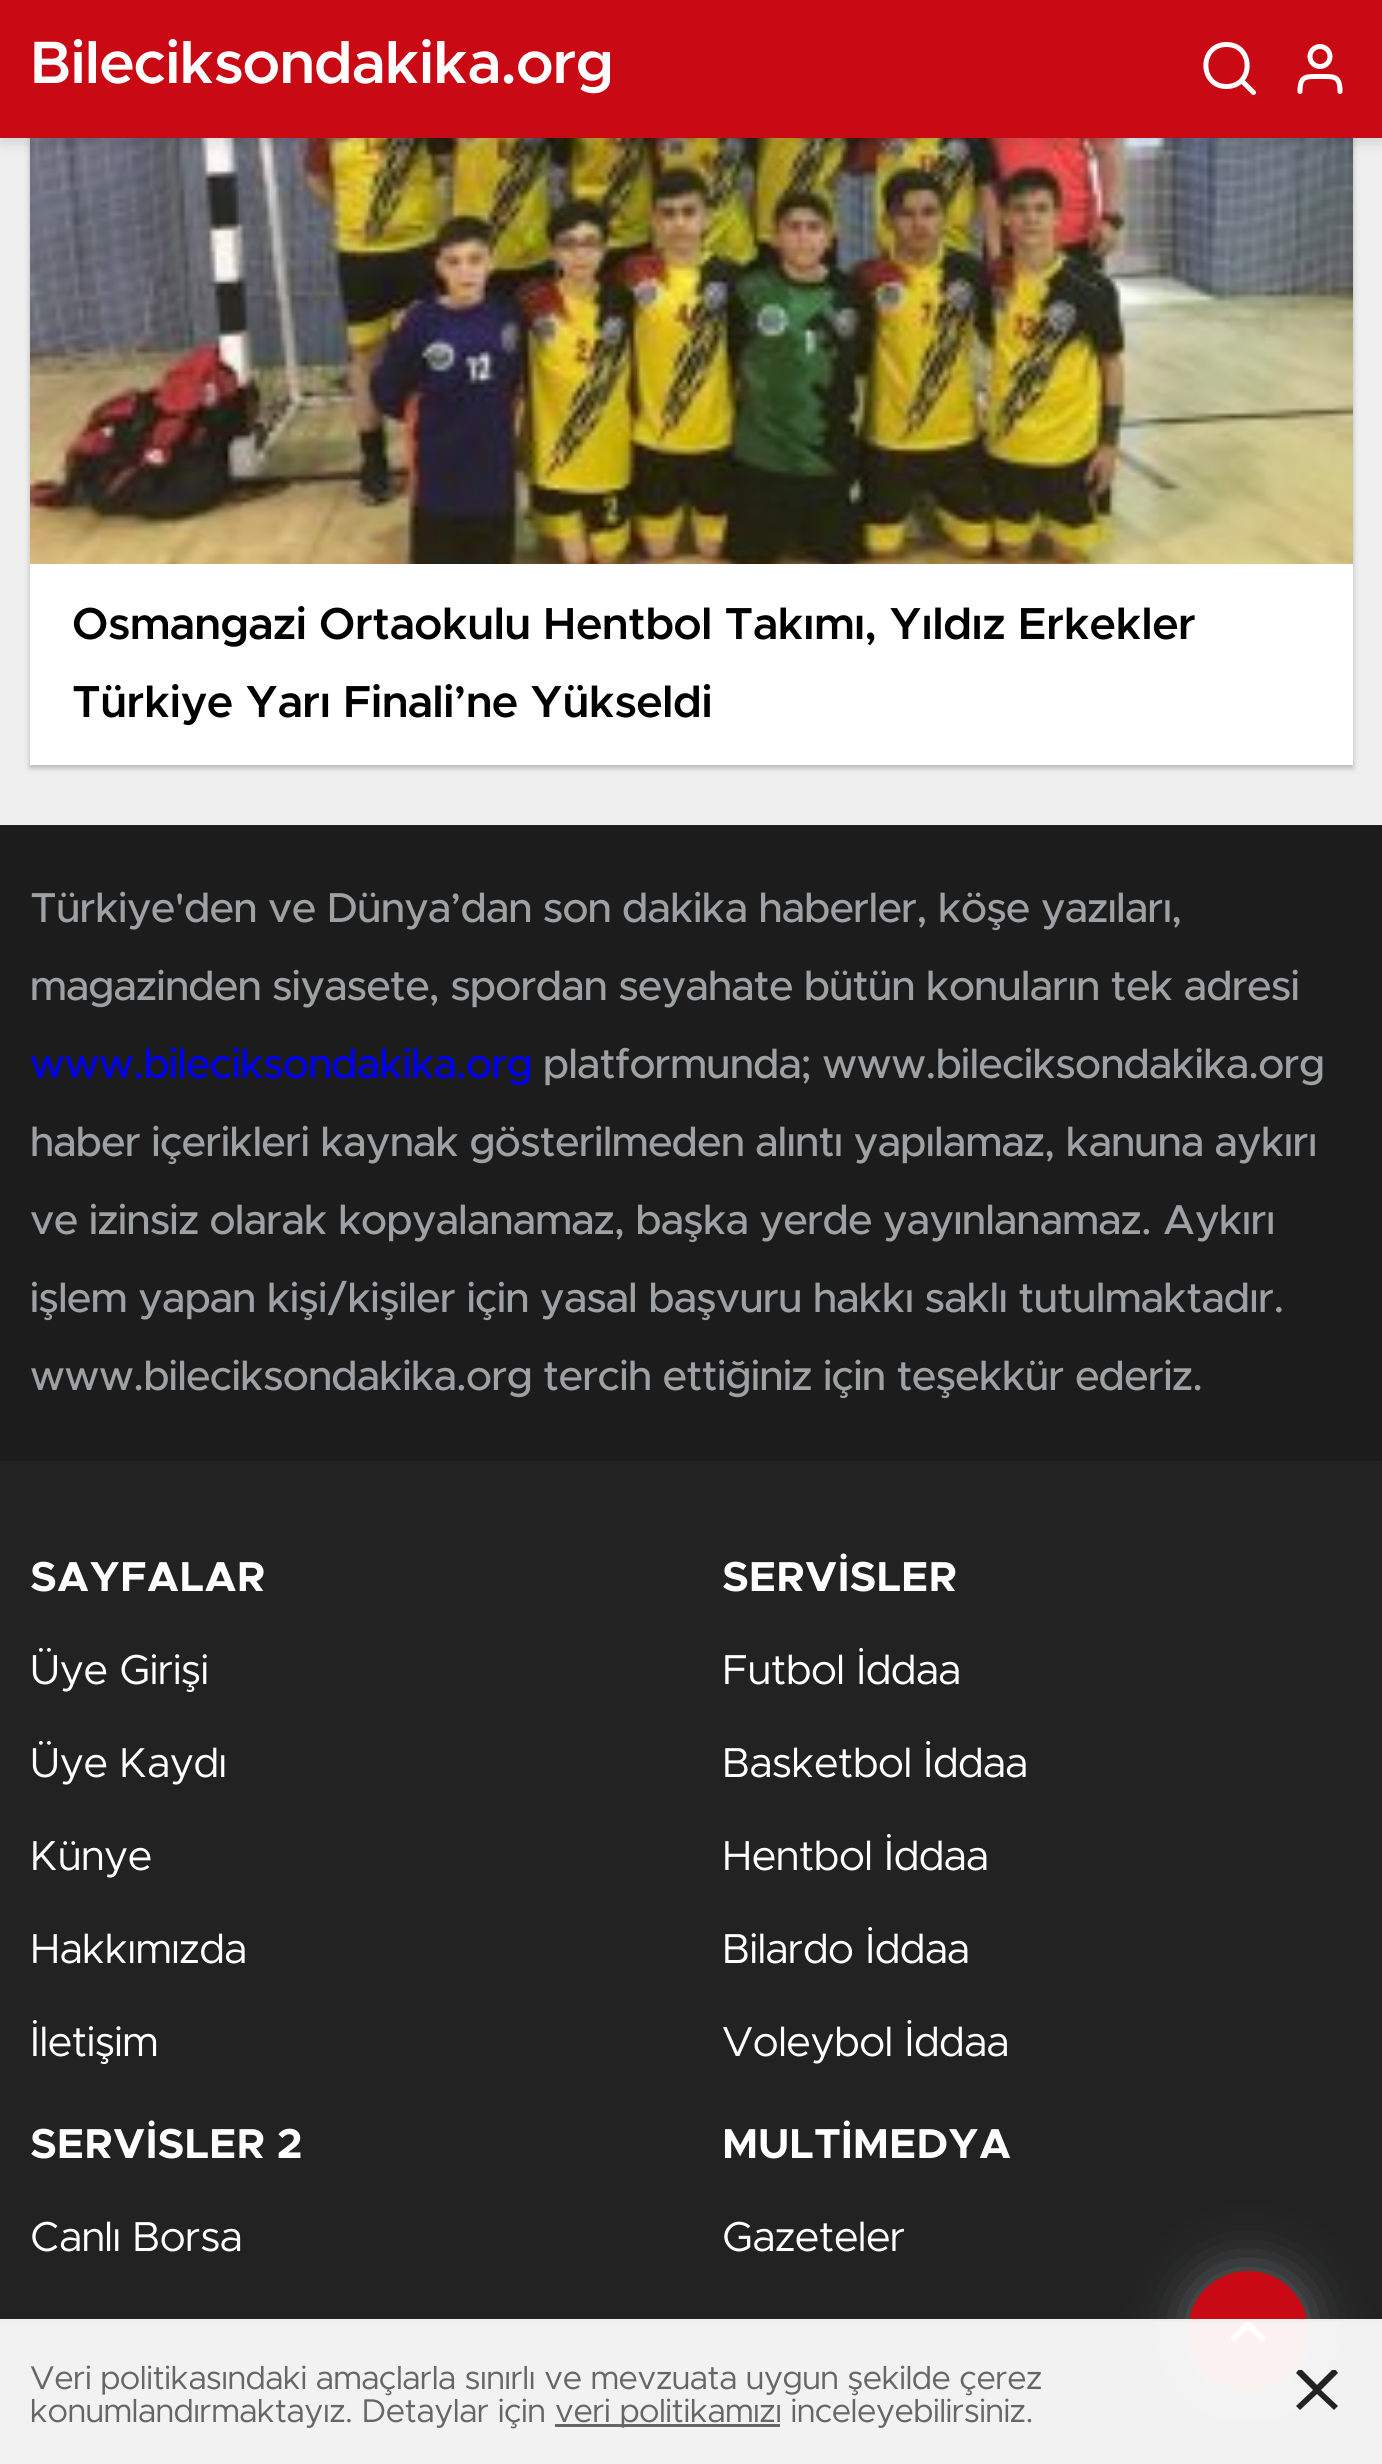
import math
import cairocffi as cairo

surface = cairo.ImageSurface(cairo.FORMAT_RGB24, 1382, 2464)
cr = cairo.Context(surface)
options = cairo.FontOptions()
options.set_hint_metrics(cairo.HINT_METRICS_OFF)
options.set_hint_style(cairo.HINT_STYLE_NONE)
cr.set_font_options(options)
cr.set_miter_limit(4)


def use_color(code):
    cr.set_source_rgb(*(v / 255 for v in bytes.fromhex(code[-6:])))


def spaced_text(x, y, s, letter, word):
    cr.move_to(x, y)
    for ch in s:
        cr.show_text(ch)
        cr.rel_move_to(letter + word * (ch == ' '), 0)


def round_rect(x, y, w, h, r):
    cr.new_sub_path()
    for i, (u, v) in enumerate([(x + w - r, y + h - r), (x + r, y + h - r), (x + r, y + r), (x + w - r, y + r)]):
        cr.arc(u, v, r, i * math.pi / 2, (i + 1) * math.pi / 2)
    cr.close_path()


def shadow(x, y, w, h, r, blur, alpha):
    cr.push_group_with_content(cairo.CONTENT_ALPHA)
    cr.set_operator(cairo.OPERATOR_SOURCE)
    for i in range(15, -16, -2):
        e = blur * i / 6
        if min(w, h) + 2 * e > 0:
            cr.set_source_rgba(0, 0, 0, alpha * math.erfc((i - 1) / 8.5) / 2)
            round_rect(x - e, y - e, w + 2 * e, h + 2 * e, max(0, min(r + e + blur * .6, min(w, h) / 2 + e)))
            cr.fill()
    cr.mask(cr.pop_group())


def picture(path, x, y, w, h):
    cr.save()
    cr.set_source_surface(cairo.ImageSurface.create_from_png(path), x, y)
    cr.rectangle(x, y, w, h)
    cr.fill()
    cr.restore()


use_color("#efefef")
cr.paint()
use_color("#111519")
shadow(30, -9, 1323, 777, 0, 3, 0.27)
picture("img1.png", 30, 138, 1323, 426)
shadow(0, 6, 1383, 138, 0, 6, 0.12)
use_color("#c90914")
cr.rectangle(0, 0, 1382, 138)
cr.fill()
cr.select_font_face("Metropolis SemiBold")
cr.set_font_size(60)
use_color("#ffffff")
cr.move_to(30, 83)
cr.show_text("Bileciksondakika.org")
cr.new_path()
cr.move_to(1226.5, 86.5)
cr.curve_to(1254, 86.5, 1254, 44.5, 1226.5, 44.5)
cr.curve_to(1199, 44.5, 1199, 86.5, 1226.5, 86.5)
cr.close_path()
cr.move_to(1241.5, 80.5)
cr.line_to(1253.5, 92.5)
cr.set_line_width(5)
cr.set_line_cap(cairo.LINE_CAP_ROUND)
cr.set_line_join(cairo.LINE_JOIN_ROUND)
cr.stroke()
cr.new_path()
cr.move_to(1340, 91.5)
cr.curve_to(1340, 75.5, 1334, 76.5, 1320, 76.5)
cr.curve_to(1306, 76.5, 1300, 75.5, 1300, 91.5)
cr.stroke()
cr.arc(1320, 56.5, 10, 0, 2 * math.pi)
cr.set_line_cap(cairo.LINE_CAP_BUTT)
cr.set_line_join(cairo.LINE_JOIN_MITER)
cr.stroke()
cr.rectangle(30, 564, 1323, 201)
cr.fill()
cr.set_font_size(45)
use_color("#010101")
cr.move_to(72, 639)
cr.show_text("Osmangazi Ortaokulu Hentbol Takımı, Yıldız Erkekler")
cr.move_to(72, 717)
cr.show_text("Türkiye Yarı Finali’ne Yükseldi")
use_color("#222222")
cr.rectangle(0, 1461, 1382, 1003)
cr.fill()
use_color("#1c1c1c")
cr.rectangle(0, 825, 1382, 636)
cr.fill()
cr.select_font_face("Metropolis Medium")
cr.set_font_size(42)
use_color("#9da1a4")
spaced_text(30, 922, "Türkiye'den ve Dünya’dan son dakika haberler, köşe yazıları,", -0.3, 0)
spaced_text(30, 1000, "magazinden siyasete, spordan seyahate bütün konuların tek adresi", -0.3, 0)
use_color("#0000ee")
spaced_text(30, 1078, "www.bileciksondakika.org", -0.3, 0)
use_color("#9da1a4")
spaced_text(543, 1078, "platformunda; www.bileciksondakika.org", -0.3, 0)
spaced_text(30, 1156, "haber içerikleri kaynak gösterilmeden alıntı yapılamaz, kanuna aykırı", -0.3, 0)
spaced_text(30, 1234, "ve izinsiz olarak kopyalanamaz, başka yerde yayınlanamaz. Aykırı", -0.3, 0)
spaced_text(30, 1312, "işlem yapan kişi/kişiler için yasal başvuru hakkı saklı tutulmaktadır.", -0.3, 0)
spaced_text(30, 1390, "www.bileciksondakika.org tercih ettiğiniz için teşekkür ederiz.", -0.3, 0)
cr.select_font_face("Metropolis", cairo.FONT_SLANT_NORMAL, cairo.FONT_WEIGHT_BOLD)
use_color("#ffffff")
cr.move_to(30, 1591)
cr.show_text("SAYFALAR")
cr.select_font_face("Metropolis")
cr.move_to(30, 1684)
cr.show_text("Üye Girişi")
cr.move_to(30, 1777)
cr.show_text("Üye Kaydı")
cr.move_to(30, 1870)
cr.show_text("Künye")
cr.move_to(30, 1963)
cr.show_text("Hakkımızda")
cr.move_to(30, 2056)
cr.show_text("İletişim")
cr.select_font_face("Metropolis", cairo.FONT_SLANT_NORMAL, cairo.FONT_WEIGHT_BOLD)
cr.move_to(722, 1591)
cr.show_text("SERVİSLER")
cr.select_font_face("Metropolis")
cr.move_to(722, 1684)
cr.show_text("Futbol İddaa")
cr.move_to(722, 1777)
cr.show_text("Basketbol İddaa")
cr.move_to(722, 1870)
cr.show_text("Hentbol İddaa")
cr.move_to(722, 1963)
cr.show_text("Bilardo İddaa")
cr.move_to(722, 2056)
cr.show_text("Voleybol İddaa")
cr.select_font_face("Metropolis", cairo.FONT_SLANT_NORMAL, cairo.FONT_WEIGHT_BOLD)
cr.move_to(30, 2158)
cr.show_text("SERVİSLER 2")
cr.select_font_face("Metropolis")
cr.move_to(30, 2251)
cr.show_text("Canlı Borsa")
cr.select_font_face("Metropolis", cairo.FONT_SLANT_NORMAL, cairo.FONT_WEIGHT_BOLD)
cr.move_to(722, 2158)
cr.show_text("MULTİMEDYA")
cr.select_font_face("Metropolis")
cr.move_to(722, 2251)
cr.show_text("Gazeteler")
use_color("#9da1a4")
shadow(1188, 2271, 120, 120, 60, 27, 0.54)
use_color("#c90914")
cr.arc(1248, 2331, 60, 0, 2 * math.pi)
cr.fill()
use_color("#ffffff")
cr.new_path()
cr.move_to(1248, 2320)
cr.line_to(1230, 2338)
cr.line_to(1234, 2342)
cr.line_to(1248, 2328.5)
cr.line_to(1262, 2342)
cr.line_to(1266, 2338)
cr.close_path()
cr.fill()
cr.set_source_rgba(1, 1, 1, 0.94)
cr.rectangle(0, 2322, 1382, 142)
cr.fill()
use_color("#eeeeee")
cr.rectangle(0, 2319, 1382, 3)
cr.fill()
cr.set_font_size(33)
use_color("#666666")
cr.move_to(30, 2389)
cr.show_text("Veri politikasındaki amaçlarla sınırlı ve mevzuata uygun şekilde çerez")
cr.move_to(30, 2422)
cr.show_text("konumlandırmaktayız. Detaylar için")
cr.rectangle(555, 2424, 225, 3)
cr.fill()
cr.move_to(555, 2422)
cr.show_text("veri politikamızı inceleyebilirsiniz.")
cr.save()
cr.rectangle(1296, 2370, 42, 42)
cr.clip()
use_color("#222222")
cr.new_path()
cr.move_to(1338, 2373)
cr.line_to(1334, 2368)
cr.line_to(1317, 2385)
cr.line_to(1300, 2368)
cr.line_to(1296, 2373)
cr.line_to(1313, 2390)
cr.line_to(1296, 2406)
cr.line_to(1300, 2410)
cr.line_to(1317, 2394)
cr.line_to(1334, 2410)
cr.line_to(1338, 2406)
cr.line_to(1321, 2390)
cr.close_path()
cr.fill()
cr.restore()
surface.write_to_png("result.png")
